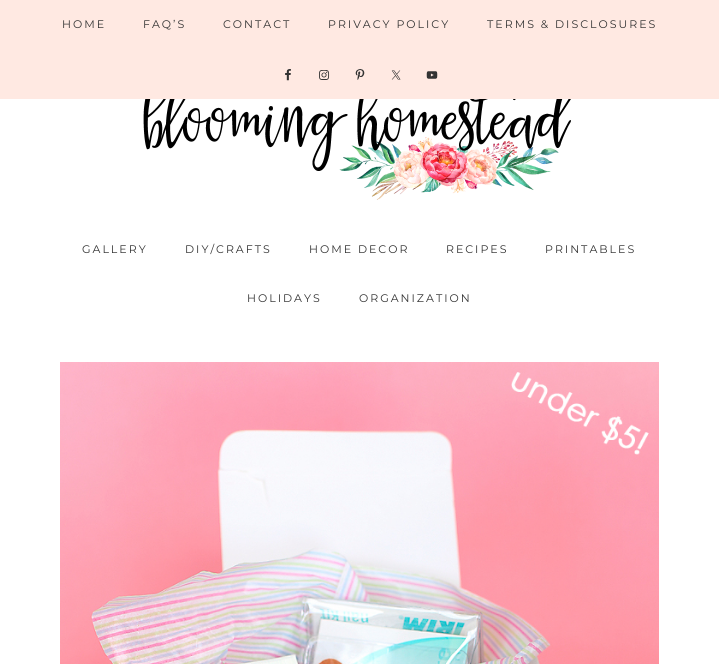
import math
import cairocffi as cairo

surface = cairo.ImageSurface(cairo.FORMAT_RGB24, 719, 664)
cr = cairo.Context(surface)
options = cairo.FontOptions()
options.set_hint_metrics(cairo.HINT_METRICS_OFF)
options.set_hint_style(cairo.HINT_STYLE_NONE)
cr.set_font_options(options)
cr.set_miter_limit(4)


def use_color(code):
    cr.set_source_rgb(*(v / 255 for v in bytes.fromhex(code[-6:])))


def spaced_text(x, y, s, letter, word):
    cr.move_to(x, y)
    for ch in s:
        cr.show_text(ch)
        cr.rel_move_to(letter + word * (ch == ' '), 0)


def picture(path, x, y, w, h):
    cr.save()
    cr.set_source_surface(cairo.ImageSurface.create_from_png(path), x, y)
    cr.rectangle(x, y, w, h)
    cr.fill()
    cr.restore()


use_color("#ffffff")
cr.paint()
use_color("#ffe9e2")
cr.rectangle(0, 0, 719, 99)
cr.fill()
cr.select_font_face("Montserrat Thin")
cr.set_font_size(11)
use_color("#333333")
spaced_text(62, 28, "HOME", 2, 0)
spaced_text(143, 28, "FAQ’S", 2, 0)
spaced_text(223, 28, "CONTACT", 2, 0)
spaced_text(328, 28, "PRIVACY POLICY", 2, 0)
spaced_text(487, 28, "TERMS & DISCLOSURES", 2, 0)
picture("img1.png", 285, 69, 6, 12)
picture("img2.png", 319, 70, 11, 10)
picture("img3.png", 355, 69, 10, 11)
picture("img4.png", 391, 70, 10, 10)
picture("img5.png", 426, 71, 12, 8)
picture("img6.png", 143, 99, 428, 101)
spaced_text(82, 253, "GALLERY", 2, 0)
spaced_text(185, 253, "DIY/CRAFTS", 2, 0)
spaced_text(309, 253, "HOME DECOR", 2, 0)
spaced_text(446, 253, "RECIPES", 2, 0)
spaced_text(545, 253, "PRINTABLES", 2, 0)
spaced_text(247, 302, "HOLIDAYS", 2, 0)
spaced_text(359, 302, "ORGANIZATION", 2, 0)
picture("img7.png", 60, 362, 599, 302)
surface.write_to_png("result.png")
